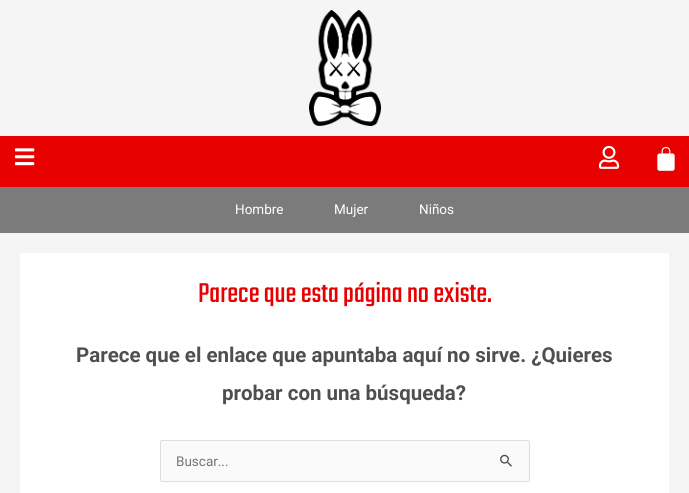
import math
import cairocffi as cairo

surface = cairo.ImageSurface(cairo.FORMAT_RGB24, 689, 493)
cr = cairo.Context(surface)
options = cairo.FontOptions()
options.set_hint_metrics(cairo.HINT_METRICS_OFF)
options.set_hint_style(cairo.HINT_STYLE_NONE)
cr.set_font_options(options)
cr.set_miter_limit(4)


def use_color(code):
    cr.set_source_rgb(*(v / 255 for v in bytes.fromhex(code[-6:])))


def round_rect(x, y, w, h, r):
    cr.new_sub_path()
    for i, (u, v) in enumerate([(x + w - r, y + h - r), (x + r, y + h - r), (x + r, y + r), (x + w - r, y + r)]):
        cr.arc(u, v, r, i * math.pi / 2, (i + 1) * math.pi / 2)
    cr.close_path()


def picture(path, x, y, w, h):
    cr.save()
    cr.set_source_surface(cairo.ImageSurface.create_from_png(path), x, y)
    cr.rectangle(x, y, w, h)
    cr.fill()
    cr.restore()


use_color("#f5f5f5")
cr.paint()
picture("img1.png", 309, 10, 72, 116)
use_color("#e90000")
cr.rectangle(0, 136, 689, 51)
cr.fill()
picture("img2.png", 15, 148, 20, 18)
picture("img3.png", 598, 145, 22, 24)
picture("img4.png", 657, 147, 18, 24)
use_color("#7b7b7b")
cr.rectangle(0, 187, 689, 46)
cr.fill()
cr.select_font_face("Roboto")
cr.set_font_size(13.5)
use_color("#ffffff")
cr.move_to(235, 214)
cr.show_text("Hombre")
cr.move_to(334, 214)
cr.show_text("Mujer")
cr.move_to(419, 214)
cr.show_text("Niños")
cr.rectangle(20, 253, 649, 240)
cr.fill()
cr.select_font_face("Teko")
cr.set_font_size(30)
use_color("#e90000")
cr.move_to(198, 302)
cr.show_text("Parece que esta página no existe.")
cr.select_font_face("Roboto", cairo.FONT_SLANT_NORMAL, cairo.FONT_WEIGHT_BOLD)
cr.set_font_size(20.5)
use_color("#4f4f4f")
cr.move_to(76, 362)
cr.show_text("Parece que el enlace que apuntaba aquí no sirve. ¿Quieres")
cr.move_to(222, 400)
cr.show_text("probar con una búsqueda?")
use_color("#fafafa")
round_rect(160.5, 440.5, 369, 41, 1.5)
cr.fill_preserve()
use_color("#dddddd")
cr.set_line_width(1)
cr.stroke()
cr.select_font_face("Roboto")
cr.set_font_size(13.5)
use_color("#757575")
cr.move_to(176, 466)
cr.show_text("Buscar...")
picture("img5.png", 500, 454, 12, 13)
surface.write_to_png("result.png")
